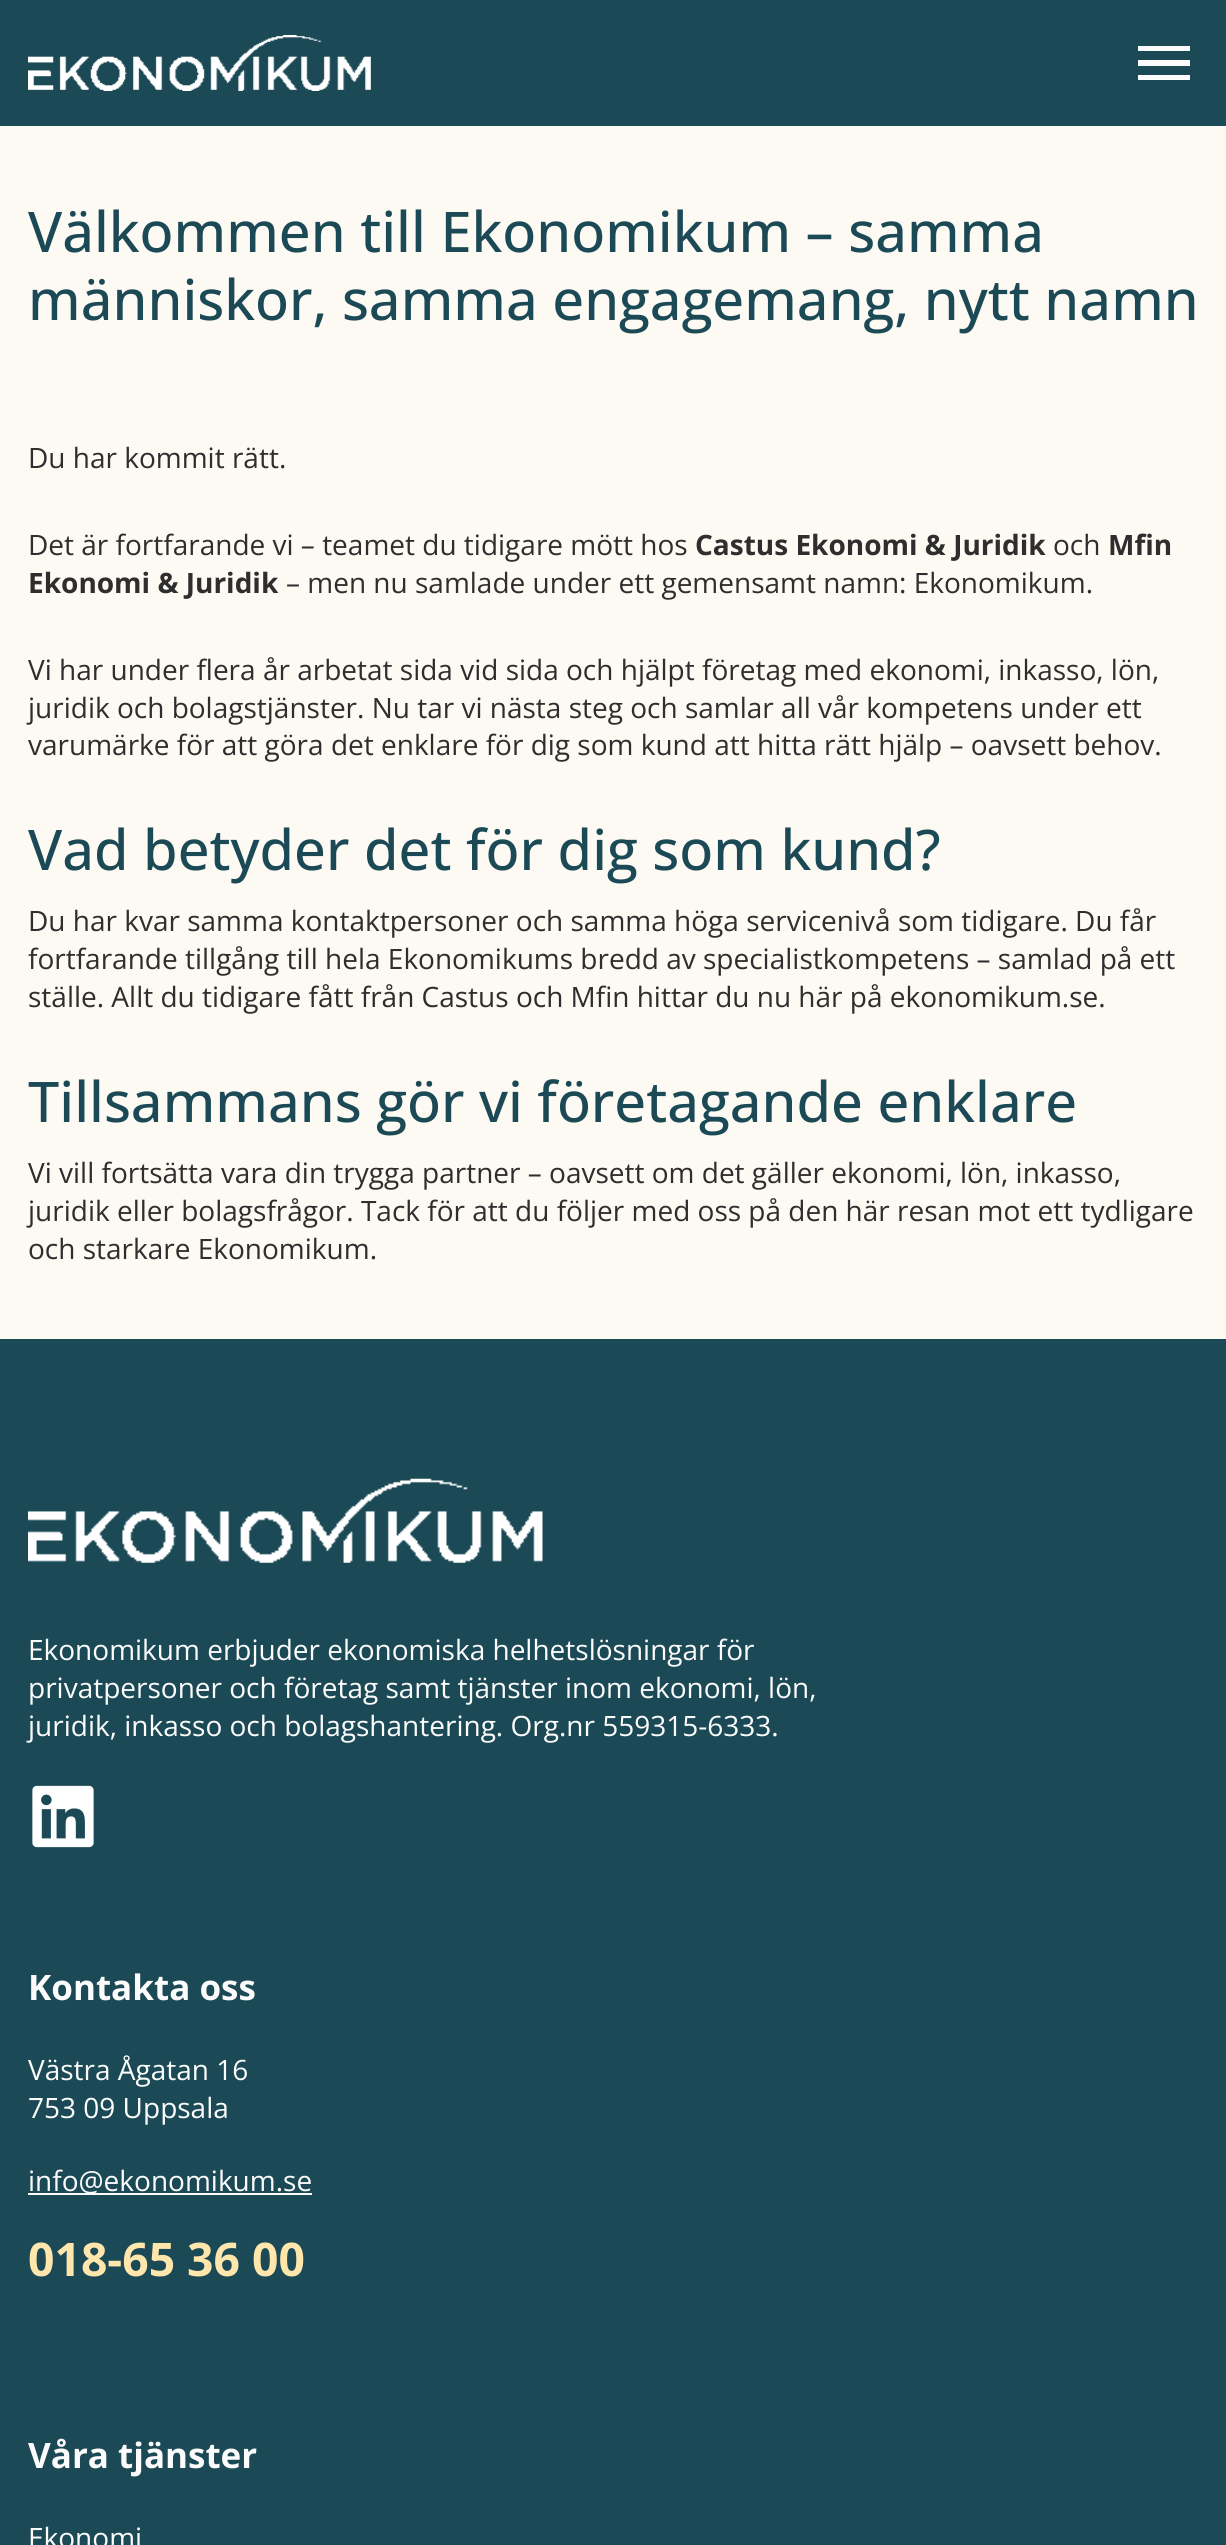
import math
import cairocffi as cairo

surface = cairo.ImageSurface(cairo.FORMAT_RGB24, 1226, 2545)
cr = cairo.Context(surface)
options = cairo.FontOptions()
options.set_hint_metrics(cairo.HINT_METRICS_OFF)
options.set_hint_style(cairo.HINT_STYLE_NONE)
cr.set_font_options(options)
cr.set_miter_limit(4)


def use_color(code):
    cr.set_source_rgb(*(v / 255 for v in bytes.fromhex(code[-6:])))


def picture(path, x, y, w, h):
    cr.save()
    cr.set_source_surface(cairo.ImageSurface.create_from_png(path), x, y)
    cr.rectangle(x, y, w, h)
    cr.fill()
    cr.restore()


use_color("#fdf9f3")
cr.paint()
use_color("#1b4a56")
cr.rectangle(0, 0, 1226, 126)
cr.fill()
picture("img1.png", 28, 35, 343, 56)
use_color("#fcfcfc")
cr.new_path()
cr.move_to(1138, 80)
cr.line_to(1138, 75)
cr.line_to(1190, 75)
cr.line_to(1190, 80)
cr.close_path()
cr.move_to(1138, 66)
cr.line_to(1138, 60)
cr.line_to(1190, 60)
cr.line_to(1190, 66)
cr.close_path()
cr.move_to(1138, 51)
cr.line_to(1138, 46)
cr.line_to(1190, 46)
cr.line_to(1190, 51)
cr.close_path()
cr.fill()
cr.select_font_face("Open Sans Medium")
cr.set_font_size(56)
use_color("#1b4a56")
cr.move_to(28, 252)
cr.show_text("Välkommen till Ekonomikum – samma")
cr.move_to(28, 320)
cr.show_text("människor, samma engagemang, nytt namn")
cr.select_font_face("Open Sans")
cr.set_font_size(28)
use_color("#2e2e2e")
cr.move_to(28, 468)
cr.show_text("Du har kommit rätt.")
cr.move_to(28, 555)
cr.show_text("Det är fortfarande vi – teamet du tidigare mött hos")
cr.select_font_face("Open Sans", cairo.FONT_SLANT_NORMAL, cairo.FONT_WEIGHT_BOLD)
cr.move_to(695, 555)
cr.show_text("Castus Ekonomi & Juridik")
cr.select_font_face("Open Sans")
cr.move_to(1053, 555)
cr.show_text("och")
cr.select_font_face("Open Sans", cairo.FONT_SLANT_NORMAL, cairo.FONT_WEIGHT_BOLD)
cr.move_to(1108, 555)
cr.show_text("Mfin")
cr.move_to(28, 593)
cr.show_text("Ekonomi & Juridik")
cr.select_font_face("Open Sans")
cr.move_to(286, 593)
cr.show_text("– men nu samlade under ett gemensamt namn: Ekonomikum.")
cr.move_to(28, 680)
cr.show_text("Vi har under flera år arbetat sida vid sida och hjälpt företag med ekonomi, inkasso, lön,")
cr.move_to(28, 718)
cr.show_text("juridik och bolagstjänster. Nu tar vi nästa steg och samlar all vår kompetens under ett")
cr.move_to(28, 755)
cr.show_text("varumärke för att göra det enklare för dig som kund att hitta rätt hjälp – oavsett behov.")
cr.select_font_face("Open Sans Medium")
cr.set_font_size(56)
use_color("#1b4a56")
cr.move_to(28, 870)
cr.show_text("Vad betyder det för dig som kund?")
cr.select_font_face("Open Sans")
cr.set_font_size(28)
use_color("#2e2e2e")
cr.move_to(28, 931)
cr.show_text("Du har kvar samma kontaktpersoner och samma höga servicenivå som tidigare. Du får")
cr.move_to(28, 969)
cr.show_text("fortfarande tillgång till hela Ekonomikums bredd av specialistkompetens – samlad på ett")
cr.move_to(28, 1007)
cr.show_text("ställe. Allt du tidigare fått från Castus och Mfin hittar du nu här på ekonomikum.se.")
cr.select_font_face("Open Sans Medium")
cr.set_font_size(56)
use_color("#1b4a56")
cr.move_to(28, 1122)
cr.show_text("Tillsammans gör vi företagande enklare")
cr.select_font_face("Open Sans")
cr.set_font_size(28)
use_color("#2e2e2e")
cr.move_to(28, 1183)
cr.show_text("Vi vill fortsätta vara din trygga partner – oavsett om det gäller ekonomi, lön, inkasso,")
cr.move_to(28, 1221)
cr.show_text("juridik eller bolagsfrågor. Tack för att du följer med oss på den här resan mot ett tydligare")
cr.move_to(28, 1259)
cr.show_text("och starkare Ekonomikum.")
use_color("#1b4a56")
cr.rectangle(0, 1339, 1226, 1206)
cr.fill()
picture("img2.png", 28, 1478, 515, 85)
use_color("#fcfcfc")
cr.move_to(28, 1660)
cr.show_text("Ekonomikum erbjuder ekonomiska helhetslösningar för")
cr.move_to(28, 1698)
cr.show_text("privatpersoner och företag samt tjänster inom ekonomi, lön,")
cr.move_to(28, 1736)
cr.show_text("juridik, inkasso och bolagshantering. Org.nr 559315-6333.")
picture("img3.png", 32, 1785, 62, 63)
cr.select_font_face("Open Sans", cairo.FONT_SLANT_NORMAL, cairo.FONT_WEIGHT_BOLD)
cr.set_font_size(35)
cr.move_to(28, 2000)
cr.show_text("Kontakta oss")
cr.select_font_face("Open Sans")
cr.set_font_size(28)
cr.move_to(28, 2080)
cr.show_text("Västra Ågatan 16")
cr.move_to(28, 2118)
cr.show_text("753 09 Uppsala")
cr.rectangle(28, 2193, 284, 2)
cr.fill()
cr.move_to(28, 2191)
cr.show_text("info@ekonomikum.se")
cr.select_font_face("Open Sans", cairo.FONT_SLANT_NORMAL, cairo.FONT_WEIGHT_BOLD)
cr.set_font_size(46.25)
use_color("#ffe6ad")
cr.move_to(28, 2276)
cr.show_text("018-65 36 00")
cr.set_font_size(35)
use_color("#fcfcfc")
cr.move_to(28, 2468)
cr.show_text("Våra tjänster")
cr.select_font_face("Open Sans")
cr.set_font_size(28)
cr.move_to(28, 2548)
cr.show_text("Ekonomi")
surface.write_to_png("result.png")
